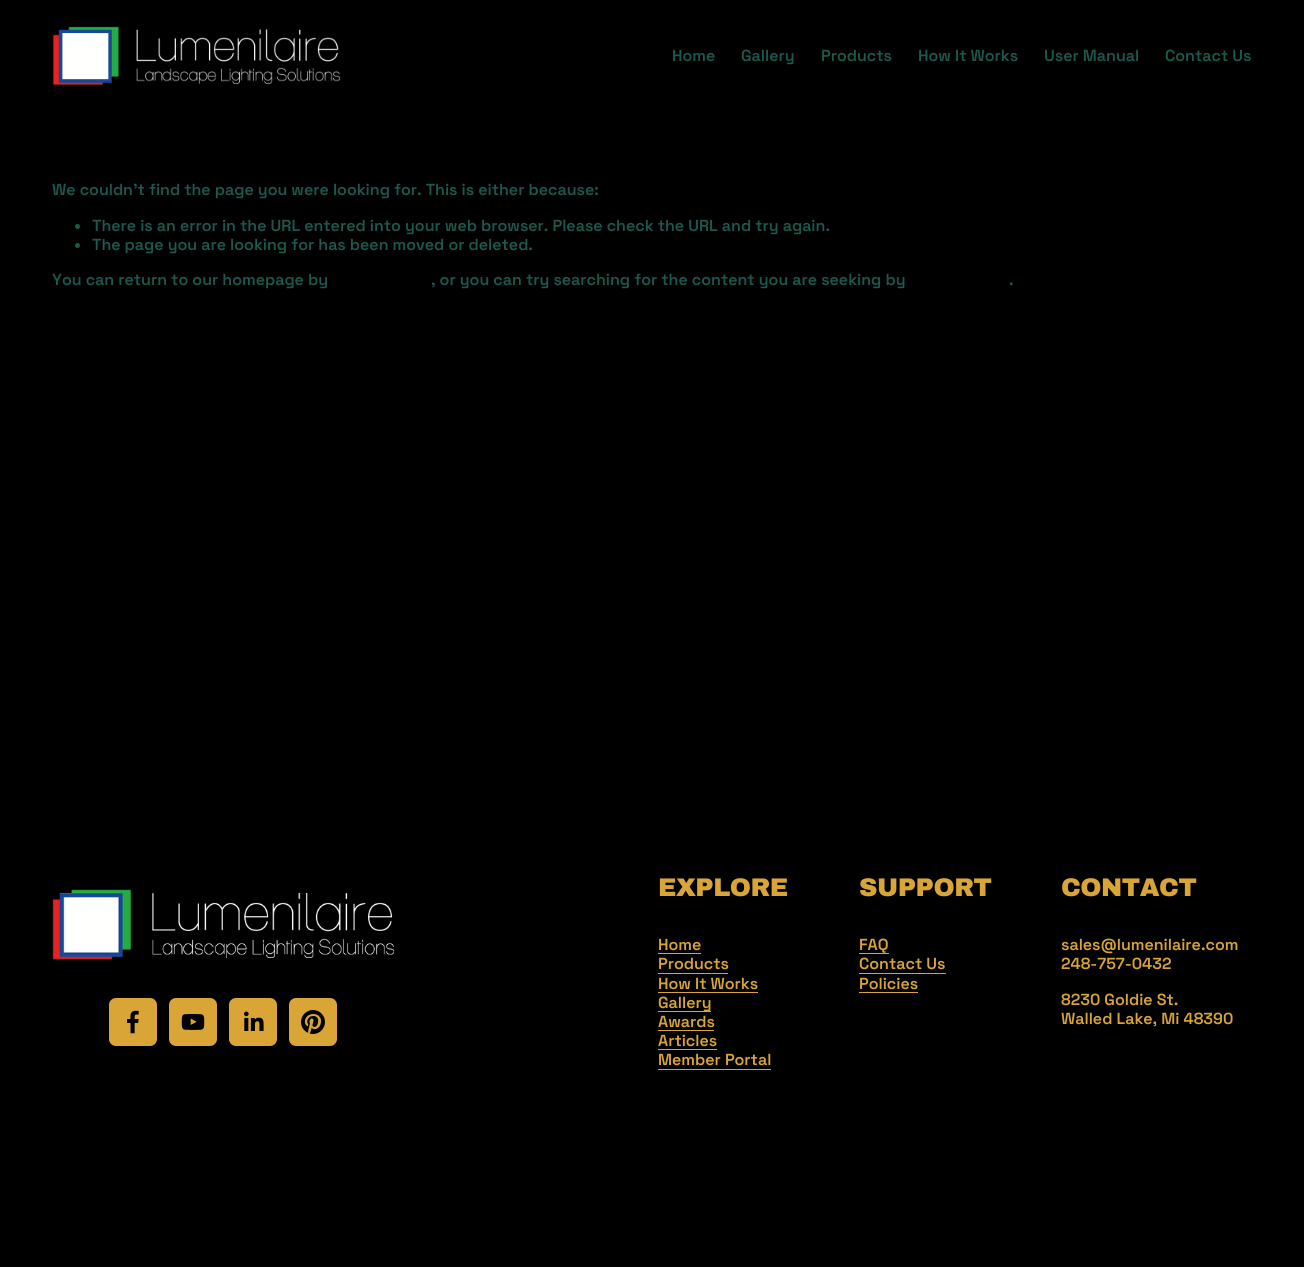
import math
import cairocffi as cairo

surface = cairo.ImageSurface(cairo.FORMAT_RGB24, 1304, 1267)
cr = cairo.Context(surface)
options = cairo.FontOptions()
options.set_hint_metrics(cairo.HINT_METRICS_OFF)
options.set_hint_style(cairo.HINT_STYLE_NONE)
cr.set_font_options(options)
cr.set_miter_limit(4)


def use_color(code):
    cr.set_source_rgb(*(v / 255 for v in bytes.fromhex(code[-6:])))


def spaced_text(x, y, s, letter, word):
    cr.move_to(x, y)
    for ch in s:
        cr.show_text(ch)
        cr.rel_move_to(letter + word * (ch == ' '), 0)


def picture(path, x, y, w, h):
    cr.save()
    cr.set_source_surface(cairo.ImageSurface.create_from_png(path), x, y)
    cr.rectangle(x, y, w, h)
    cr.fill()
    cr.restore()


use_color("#000000")
cr.paint()
picture("img1.png", 52, 26, 289, 60)
cr.select_font_face("Space Grotesk SemiBold")
cr.set_font_size(16)
use_color("#1d584d")
cr.move_to(672, 61)
cr.show_text("Home")
cr.move_to(741, 61)
cr.show_text("Gallery")
cr.move_to(821, 61)
cr.show_text("Products")
cr.move_to(918, 61)
cr.show_text("How It Works")
cr.move_to(1044, 61)
cr.show_text("User Manual")
cr.move_to(1165, 61)
cr.show_text("Contact Us")
cr.move_to(52, 195)
cr.show_text("We couldn't find the page you were looking for. This is either because:")
cr.new_path()
cr.arc(77.5, 226.5, 2.5, 0, 2 * math.pi)
cr.fill()
cr.move_to(92, 231)
cr.show_text("There is an error in the URL entered into your web browser. Please check the URL and try again.")
cr.new_path()
cr.arc(77.5, 245.5, 2.5, 0, 2 * math.pi)
cr.fill()
cr.move_to(92, 250)
cr.show_text("The page you are looking for has been moved or deleted.")
cr.move_to(52, 285)
cr.show_text("You can return to our homepage by")
cr.move_to(431, 285)
cr.show_text(", or you can try searching for the content you are seeking by")
cr.move_to(1009, 285)
cr.show_text(".")
picture("img2.png", 52, 889, 342, 71)
cr.select_font_face("Archivo Black Black")
cr.set_font_size(25.5)
use_color("#daa537")
spaced_text(658, 896, "EXPLORE", -0.5, 0)
cr.select_font_face("Space Grotesk SemiBold")
cr.set_font_size(16)
cr.move_to(658, 950)
cr.show_text("Home")
cr.rectangle(658, 953, 43, 1)
cr.fill()
cr.move_to(658, 969)
cr.show_text("Products")
cr.rectangle(658, 973, 70, 1)
cr.fill()
cr.move_to(658, 989)
cr.show_text("How It Works")
cr.rectangle(658, 992, 100, 1)
cr.fill()
cr.rectangle(658, 1011, 53, 1)
cr.fill()
cr.move_to(658, 1008)
cr.show_text("Gallery")
cr.move_to(658, 1027)
cr.show_text("Awards")
cr.rectangle(658, 1030, 56, 1)
cr.fill()
cr.move_to(658, 1046)
cr.show_text("Articles")
cr.rectangle(658, 1049, 59, 1)
cr.fill()
cr.move_to(658, 1065)
cr.show_text("Member Portal")
cr.rectangle(658, 1069, 113, 1)
cr.fill()
cr.select_font_face("Archivo Black Black")
cr.set_font_size(25.5)
spaced_text(859, 896, "SUPPORT", -0.5, 0)
cr.select_font_face("Space Grotesk SemiBold")
cr.set_font_size(16)
cr.move_to(859, 950)
cr.show_text("FAQ")
cr.rectangle(859, 953, 30, 1)
cr.fill()
cr.move_to(859, 969)
cr.show_text("Contact Us")
cr.rectangle(859, 973, 87, 1)
cr.fill()
cr.move_to(859, 989)
cr.show_text("Policies")
cr.rectangle(859, 992, 59, 1)
cr.fill()
cr.select_font_face("Archivo Black Black")
cr.set_font_size(25.5)
spaced_text(1061, 896, "CONTACT", -0.5, 0)
cr.select_font_face("Space Grotesk SemiBold")
cr.set_font_size(16)
cr.move_to(1061, 950)
cr.show_text("sales@lumenilaire.com")
cr.move_to(1061, 969)
cr.show_text("248-757-0432")
cr.move_to(1061, 1005)
cr.show_text("8230 Goldie St.")
cr.move_to(1061, 1024)
cr.show_text("Walled Lake, Mi 48390")
picture("img3.png", 109, 998, 48, 48)
picture("img4.png", 169, 998, 48, 48)
picture("img5.png", 229, 998, 48, 48)
picture("img6.png", 289, 998, 48, 48)
surface.write_to_png("result.png")
